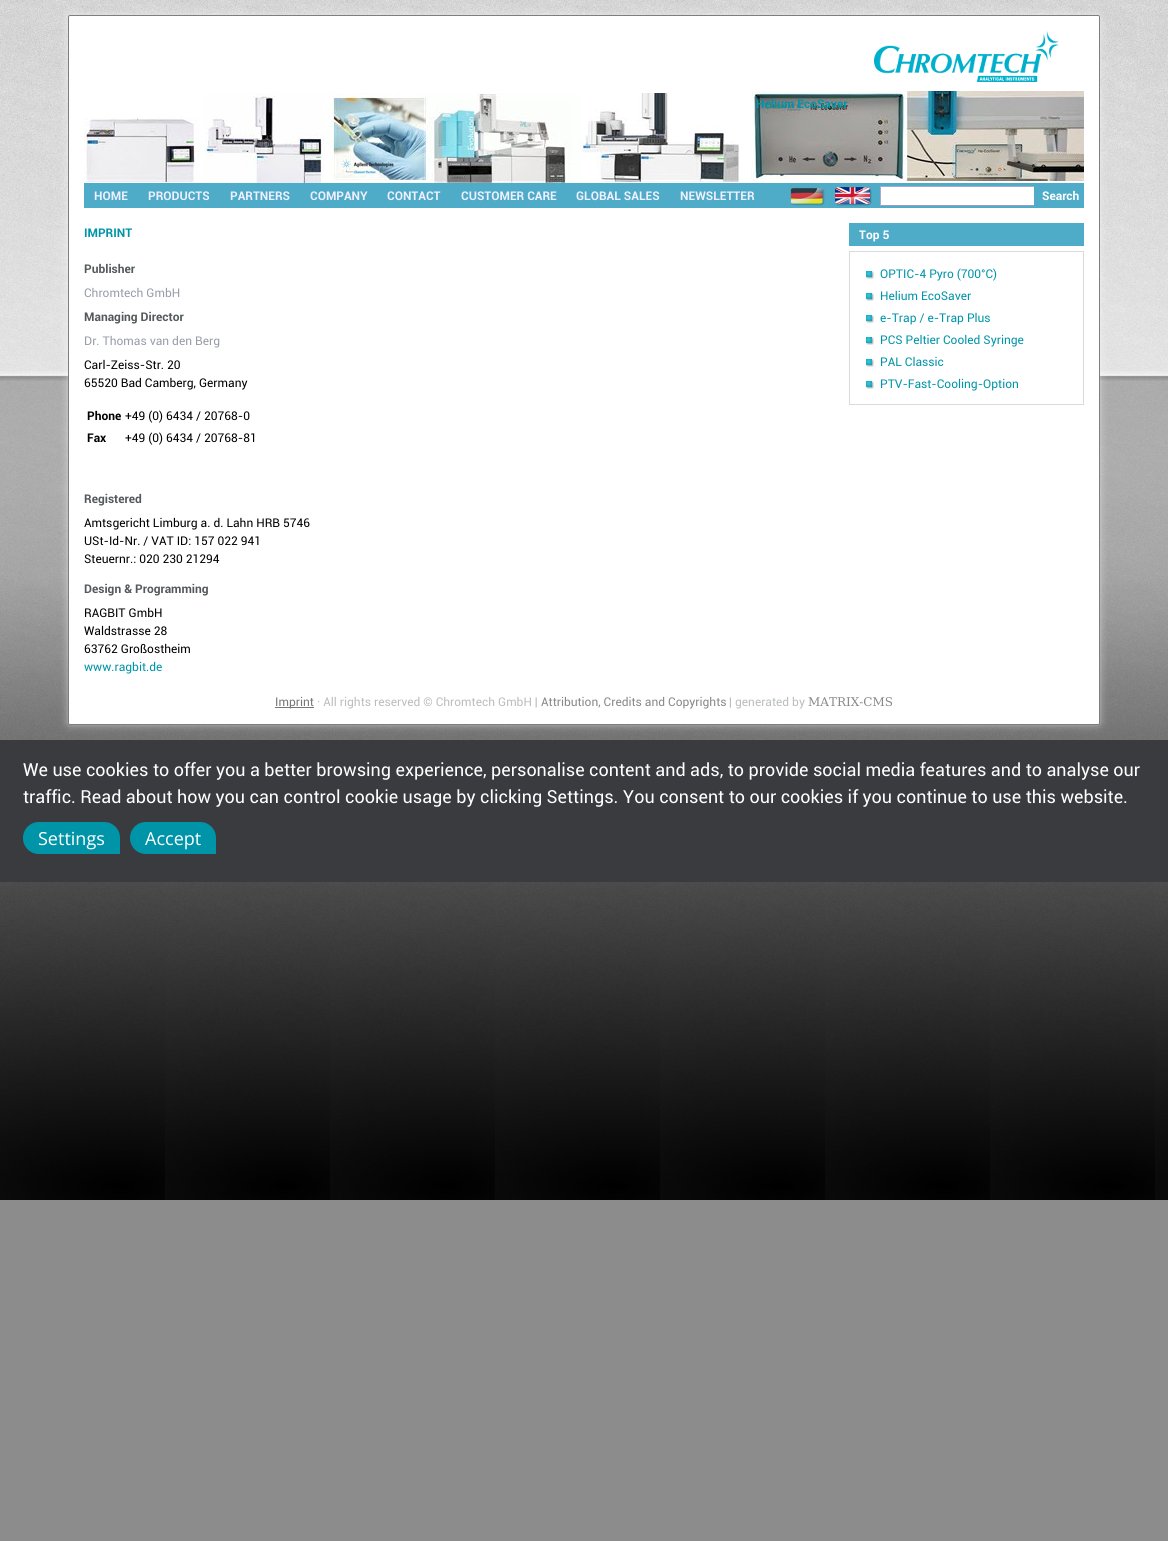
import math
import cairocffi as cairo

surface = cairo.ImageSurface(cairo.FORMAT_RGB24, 1168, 1541)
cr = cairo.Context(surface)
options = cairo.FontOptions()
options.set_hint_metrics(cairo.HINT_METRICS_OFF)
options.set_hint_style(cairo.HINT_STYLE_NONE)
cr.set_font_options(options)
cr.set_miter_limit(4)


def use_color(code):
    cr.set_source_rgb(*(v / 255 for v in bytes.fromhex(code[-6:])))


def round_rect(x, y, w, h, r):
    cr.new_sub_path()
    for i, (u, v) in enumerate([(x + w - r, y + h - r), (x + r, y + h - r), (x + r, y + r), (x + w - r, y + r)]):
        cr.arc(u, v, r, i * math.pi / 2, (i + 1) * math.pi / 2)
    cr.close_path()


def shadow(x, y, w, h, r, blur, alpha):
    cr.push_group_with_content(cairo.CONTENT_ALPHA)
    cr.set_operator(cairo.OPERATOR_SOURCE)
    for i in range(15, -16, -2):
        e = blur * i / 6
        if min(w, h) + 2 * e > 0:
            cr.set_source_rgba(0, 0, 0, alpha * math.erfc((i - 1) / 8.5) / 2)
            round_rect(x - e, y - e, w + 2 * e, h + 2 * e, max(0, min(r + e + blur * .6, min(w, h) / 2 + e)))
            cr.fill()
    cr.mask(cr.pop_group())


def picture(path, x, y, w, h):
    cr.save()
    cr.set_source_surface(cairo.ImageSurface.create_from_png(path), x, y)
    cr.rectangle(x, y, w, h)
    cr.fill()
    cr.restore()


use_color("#8c8c8c")
cr.paint()
picture("img1.png", 0, 0, 1168, 1200)
use_color("#ffffff")
shadow(68, 15, 1032, 710, 2, 4, 0.5)
use_color("#ffffff")
round_rect(68.5, 15.5, 1031, 709, 1.5)
cr.fill_preserve()
use_color("#7e7e7f")
cr.set_line_width(1)
cr.stroke()
picture("img2.png", 874, 31, 185, 51)
picture("img3.png", 84, 93, 656, 90)
picture("img4.png", 751, 91, 333, 90)
cr.select_font_face("Roboto", cairo.FONT_SLANT_NORMAL, cairo.FONT_WEIGHT_BOLD)
cr.set_font_size(12)
use_color("#0094a8")
cr.move_to(756, 108)
cr.show_text("Helium EcoSaver")
use_color("#4eacc8")
cr.rectangle(84, 183, 1000, 25)
cr.fill()
use_color("#efefff")
cr.move_to(94, 200)
cr.show_text("HOME")
cr.move_to(148, 200)
cr.show_text("PRODUCTS")
cr.move_to(230, 200)
cr.show_text("PARTNERS")
cr.move_to(310, 200)
cr.show_text("COMPANY")
cr.move_to(387, 200)
cr.show_text("CONTACT")
cr.move_to(461, 200)
cr.show_text("CUSTOMER CARE")
cr.move_to(576, 200)
cr.show_text("GLOBAL SALES")
cr.move_to(680, 200)
cr.show_text("NEWSLETTER")
picture("img5.png", 790, 188, 35, 18)
picture("img6.png", 835, 187, 37, 19)
use_color("#ffffff")
cr.rectangle(881, 187, 153, 18)
cr.fill()
use_color("#a7accf")
cr.rectangle(880, 186, 161, 1)
cr.fill()
use_color("#989dbf")
cr.rectangle(880, 205, 161, 1)
cr.fill()
use_color("#a7accf")
cr.rectangle(880, 186, 1, 20)
cr.fill()
use_color("#4eacc8")
cr.rectangle(1034, 186, 7, 20)
cr.fill()
use_color("#ffffff")
cr.move_to(1042, 200)
cr.show_text("Search")
use_color("#0094a8")
cr.move_to(84, 237)
cr.show_text("IMPRINT")
use_color("#535a5b")
cr.move_to(84, 273)
cr.show_text("Publisher")
cr.select_font_face("Roboto")
use_color("#979da8")
cr.move_to(84, 297)
cr.show_text("Chromtech GmbH")
cr.select_font_face("Roboto", cairo.FONT_SLANT_NORMAL, cairo.FONT_WEIGHT_BOLD)
use_color("#535a5b")
cr.move_to(84, 321)
cr.show_text("Managing Director")
cr.select_font_face("Roboto")
use_color("#979da8")
cr.move_to(84, 345)
cr.show_text("Dr. Thomas van den Berg")
use_color("#000000")
cr.move_to(84, 369)
cr.show_text("Carl-Zeiss-Str. 20")
cr.move_to(84, 387)
cr.show_text("65520 Bad Camberg, Germany")
cr.select_font_face("Roboto", cairo.FONT_SLANT_NORMAL, cairo.FONT_WEIGHT_BOLD)
cr.move_to(87, 420)
cr.show_text("Phone")
cr.select_font_face("Roboto")
cr.move_to(125, 420)
cr.show_text("+49 (0) 6434 / 20768-0")
cr.select_font_face("Roboto", cairo.FONT_SLANT_NORMAL, cairo.FONT_WEIGHT_BOLD)
cr.move_to(87, 442)
cr.show_text("Fax")
cr.select_font_face("Roboto")
cr.move_to(125, 442)
cr.show_text("+49 (0) 6434 / 20768-81")
cr.select_font_face("Roboto", cairo.FONT_SLANT_NORMAL, cairo.FONT_WEIGHT_BOLD)
use_color("#535a5b")
cr.move_to(84, 503)
cr.show_text("Registered")
cr.select_font_face("Roboto")
use_color("#000000")
cr.move_to(84, 527)
cr.show_text("Amtsgericht Limburg a. d. Lahn HRB 5746")
cr.move_to(84, 545)
cr.show_text("USt-Id-Nr. / VAT ID: 157 022 941")
cr.move_to(84, 563)
cr.show_text("Steuernr.: 020 230 21294")
cr.select_font_face("Roboto", cairo.FONT_SLANT_NORMAL, cairo.FONT_WEIGHT_BOLD)
use_color("#535a5b")
cr.move_to(84, 593)
cr.show_text("Design & Programming")
cr.select_font_face("Roboto")
use_color("#000000")
cr.move_to(84, 617)
cr.show_text("RAGBIT GmbH")
cr.move_to(84, 635)
cr.show_text("Waldstrasse 28")
cr.move_to(84, 653)
cr.show_text("63762 Großostheim")
use_color("#0094a8")
cr.move_to(84, 671)
cr.show_text("www.ragbit.de")
use_color("#4eacc8")
cr.rectangle(849, 223, 235, 23)
cr.fill()
cr.select_font_face("Roboto", cairo.FONT_SLANT_NORMAL, cairo.FONT_WEIGHT_BOLD)
use_color("#ffffff")
cr.move_to(859, 239)
cr.show_text("Top 5")
cr.rectangle(849.5, 251.5, 234, 153)
use_color("#d9dadc")
cr.stroke()
picture("img7.png", 866, 271, 8, 8)
cr.select_font_face("Roboto")
use_color("#0094a8")
cr.move_to(880, 278)
cr.show_text("OPTIC-4 Pyro (700°C)")
picture("img7.png", 866, 293, 8, 8)
cr.move_to(880, 300)
cr.show_text("Helium EcoSaver")
picture("img7.png", 866, 315, 8, 8)
cr.move_to(880, 322)
cr.show_text("e-Trap / e-Trap Plus")
picture("img7.png", 866, 337, 8, 8)
cr.move_to(880, 344)
cr.show_text("PCS Peltier Cooled Syringe")
picture("img7.png", 866, 359, 8, 8)
cr.move_to(880, 366)
cr.show_text("PAL Classic")
picture("img7.png", 866, 381, 8, 8)
cr.move_to(880, 388)
cr.show_text("PTV-Fast-Cooling-Option")
use_color("#777777")
cr.rectangle(275, 707, 39, 1)
cr.fill()
cr.move_to(275, 706)
cr.show_text("Imprint")
use_color("#babebc")
cr.move_to(317, 706)
cr.show_text("· All rights reserved © Chromtech GmbH |")
use_color("#888888")
cr.move_to(541, 706)
cr.show_text("Attribution, Credits and Copyrights")
use_color("#babebc")
cr.move_to(729, 706)
cr.show_text("| generated by")
cr.select_font_face("DejaVu Serif")
use_color("#888888")
cr.move_to(808, 706)
cr.show_text("MATRIX-CMS")
use_color("#3a3b3f")
cr.rectangle(0, 740, 1168, 142)
cr.fill()
cr.select_font_face("Roboto")
cr.set_font_size(18)
use_color("#ffffff")
cr.move_to(23, 776)
cr.show_text("We use cookies to offer you a better browsing experience, personalise content and ads, to provide social media features and to analyse our")
cr.move_to(23, 803)
cr.show_text("traffic. Read about how you can control cookie usage by clicking Settings. You consent to our cookies if you continue to use this website.")
use_color("#0094a8")
cr.new_path()
cr.move_to(39, 822)
cr.line_to(104, 822)
cr.curve_to(113, 822, 120, 829, 120, 838)
cr.line_to(120, 854)
cr.line_to(39, 854)
cr.curve_to(30, 854, 23, 847, 23, 838)
cr.curve_to(23, 829, 30, 822, 39, 822)
cr.close_path()
cr.fill()
cr.select_font_face("Open Sans")
use_color("#ffffff")
cr.move_to(38, 845)
cr.show_text("Settings")
use_color("#0094a8")
cr.new_path()
cr.move_to(146, 822)
cr.line_to(200, 822)
cr.curve_to(209, 822, 216, 829, 216, 838)
cr.line_to(216, 854)
cr.line_to(146, 854)
cr.curve_to(137, 854, 130, 847, 130, 838)
cr.curve_to(130, 829, 137, 822, 146, 822)
cr.close_path()
cr.fill()
use_color("#ffffff")
cr.move_to(145, 845)
cr.show_text("Accept")
surface.write_to_png("result.png")
